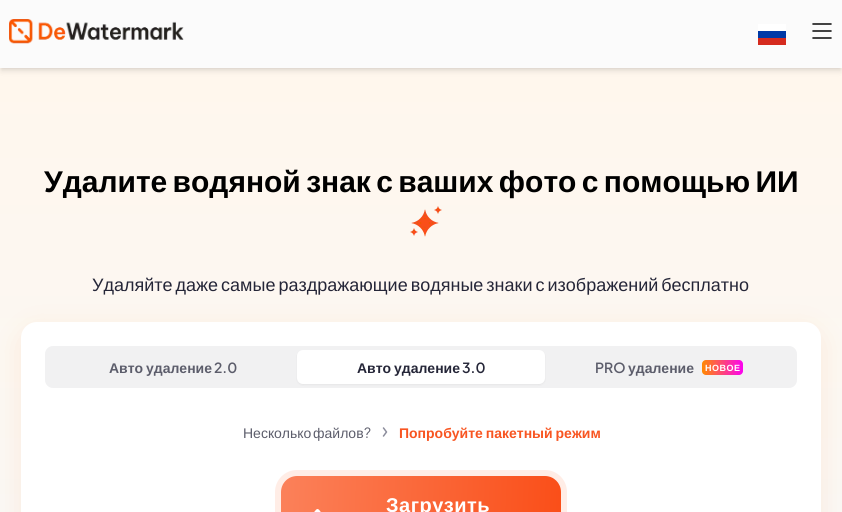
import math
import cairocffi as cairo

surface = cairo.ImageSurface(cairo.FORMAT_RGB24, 842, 512)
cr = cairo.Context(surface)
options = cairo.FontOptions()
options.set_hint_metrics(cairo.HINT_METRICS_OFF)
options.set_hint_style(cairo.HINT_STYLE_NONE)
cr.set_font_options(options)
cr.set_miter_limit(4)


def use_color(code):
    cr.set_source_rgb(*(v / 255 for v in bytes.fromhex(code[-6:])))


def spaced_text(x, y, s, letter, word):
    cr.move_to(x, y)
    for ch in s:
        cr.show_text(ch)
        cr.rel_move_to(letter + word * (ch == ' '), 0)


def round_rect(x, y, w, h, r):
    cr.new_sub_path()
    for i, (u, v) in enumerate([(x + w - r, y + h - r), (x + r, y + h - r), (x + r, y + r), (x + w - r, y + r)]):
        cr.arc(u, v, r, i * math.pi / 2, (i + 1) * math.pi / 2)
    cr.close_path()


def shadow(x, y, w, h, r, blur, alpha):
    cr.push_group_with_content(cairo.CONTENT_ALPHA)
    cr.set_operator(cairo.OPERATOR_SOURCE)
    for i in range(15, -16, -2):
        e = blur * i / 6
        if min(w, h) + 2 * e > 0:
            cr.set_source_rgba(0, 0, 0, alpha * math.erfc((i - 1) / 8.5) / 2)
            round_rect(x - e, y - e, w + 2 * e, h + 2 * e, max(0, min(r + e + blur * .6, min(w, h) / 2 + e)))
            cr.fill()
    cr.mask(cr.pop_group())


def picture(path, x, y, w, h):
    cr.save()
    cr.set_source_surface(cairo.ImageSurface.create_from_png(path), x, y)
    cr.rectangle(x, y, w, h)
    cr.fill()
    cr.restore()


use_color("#ffffff")
cr.paint()
gradient = cairo.LinearGradient(421, 68, 421, 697)
gradient.add_color_stop_rgba(0, 1, 0.969, 0.929, 1)
gradient.add_color_stop_rgba(1, 0.973, 0.973, 0.973, 1)
cr.set_source(gradient)
cr.rectangle(0, 68, 842, 444)
cr.fill()
use_color("#000000")
shadow(2, 4, 838, 64, 0, 2, 0.1)
shadow(1, 5, 840, 66, 0, 3, 0.1)
use_color("#fbfbfb")
cr.rectangle(0, 0, 842, 68)
cr.fill()
picture("img1.png", 9, 19, 175, 25)
use_color("#ffffff")
cr.rectangle(758, 24, 28, 7)
cr.fill()
use_color("#0039a6")
cr.rectangle(758, 31, 28, 7)
cr.fill()
use_color("#d52b1e")
cr.rectangle(758, 38, 28, 7)
cr.fill()
picture("img2.png", 812, 23, 20, 16)
cr.select_font_face("Liberation Sans", cairo.FONT_SLANT_NORMAL, cairo.FONT_WEIGHT_BOLD)
cr.set_font_size(30)
use_color("#000000")
spaced_text(44, 192, "Удалите водяной знак с ваших фото с помощью ИИ", 0, -3)
picture("img3.png", 410, 206, 32, 31)
use_color("#ff6005")
shadow(21, 330, 800, 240, 16, 14, 0.1)
cr.select_font_face("Liberation Sans")
cr.set_font_size(18)
use_color("#252638")
spaced_text(92, 291, "Удаляйте даже самые раздражающие водяные знаки с изображений бесплатно", 0, -2)
use_color("#ffffff")
round_rect(21, 322, 800, 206, 16)
cr.fill()
use_color("#f1f1f2")
round_rect(45, 346, 752, 42, 8)
cr.fill()
cr.select_font_face("Liberation Sans", cairo.FONT_SLANT_NORMAL, cairo.FONT_WEIGHT_BOLD)
cr.set_font_size(14)
use_color("#5c5d6b")
spaced_text(109, 373, "Авто удаление", 0, -1)
cr.select_font_face("Plus Jakarta Sans SemiBold")
cr.move_to(214, 373)
cr.show_text("2.0")
use_color("#000000")
shadow(297, 351, 248, 34, 6, 1, 0.05)
use_color("#ffffff")
round_rect(297, 350, 248, 34, 6)
cr.fill()
cr.select_font_face("Liberation Sans", cairo.FONT_SLANT_NORMAL, cairo.FONT_WEIGHT_BOLD)
use_color("#252638")
spaced_text(357, 373, "Авто удаление", 0, -1)
cr.select_font_face("Plus Jakarta Sans SemiBold")
cr.move_to(462, 373)
cr.show_text("3.0")
use_color("#5c5d6b")
cr.move_to(595, 373)
cr.show_text("PRO")
cr.select_font_face("Liberation Sans", cairo.FONT_SLANT_NORMAL, cairo.FONT_WEIGHT_BOLD)
cr.move_to(628, 373)
cr.show_text("удаление")
gradient = cairo.LinearGradient(702, 368, 743, 368)
gradient.add_color_stop_rgba(0, 1, 0.541, 0, 1)
gradient.add_color_stop_rgba(1, 0.984, 0.008, 0.945, 1)
cr.set_source(gradient)
round_rect(702, 360, 41, 15, 4)
cr.fill()
cr.set_font_size(9)
use_color("#ffffff")
spaced_text(705, 371, "НОВОЕ", 0.5, 0)
cr.select_font_face("Liberation Sans")
cr.set_font_size(14)
use_color("#5c5d6b")
spaced_text(243, 438, "Несколько файлов", 0, -2)
cr.select_font_face("Plus Jakarta Sans")
cr.move_to(364, 438)
cr.show_text("?")
cr.new_path()
cr.move_to(383.5, 436)
cr.line_to(386.5, 432)
cr.line_to(383.5, 428)
use_color("#8c8d9c")
cr.set_line_width(1.5)
cr.set_line_cap(cairo.LINE_CAP_ROUND)
cr.set_line_join(cairo.LINE_JOIN_ROUND)
cr.stroke()
cr.select_font_face("Liberation Sans", cairo.FONT_SLANT_NORMAL, cairo.FONT_WEIGHT_BOLD)
use_color("#f85521")
spaced_text(399, 438, "Попробуйте пакетный режим", 0, -1)
round_rect(278, 473, 286, 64, 19)
use_color("#ffede6")
cr.set_line_width(6)
cr.set_line_cap(cairo.LINE_CAP_BUTT)
cr.set_line_join(cairo.LINE_JOIN_MITER)
cr.stroke()
gradient = cairo.LinearGradient(279, 511, 563, 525)
gradient.add_color_stop_rgba(0, 0.984, 0.506, 0.353, 1)
gradient.add_color_stop_rgba(1, 0.98, 0.306, 0.094, 1)
cr.set_source(gradient)
round_rect(281, 476, 280, 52, 16)
cr.fill()
picture("img4.png", 314, 509, 7, 3)
cr.set_font_size(20)
use_color("#ffffff")
spaced_text(386, 512, "Загрузить", 0.5, 0)
surface.write_to_png("result.png")
